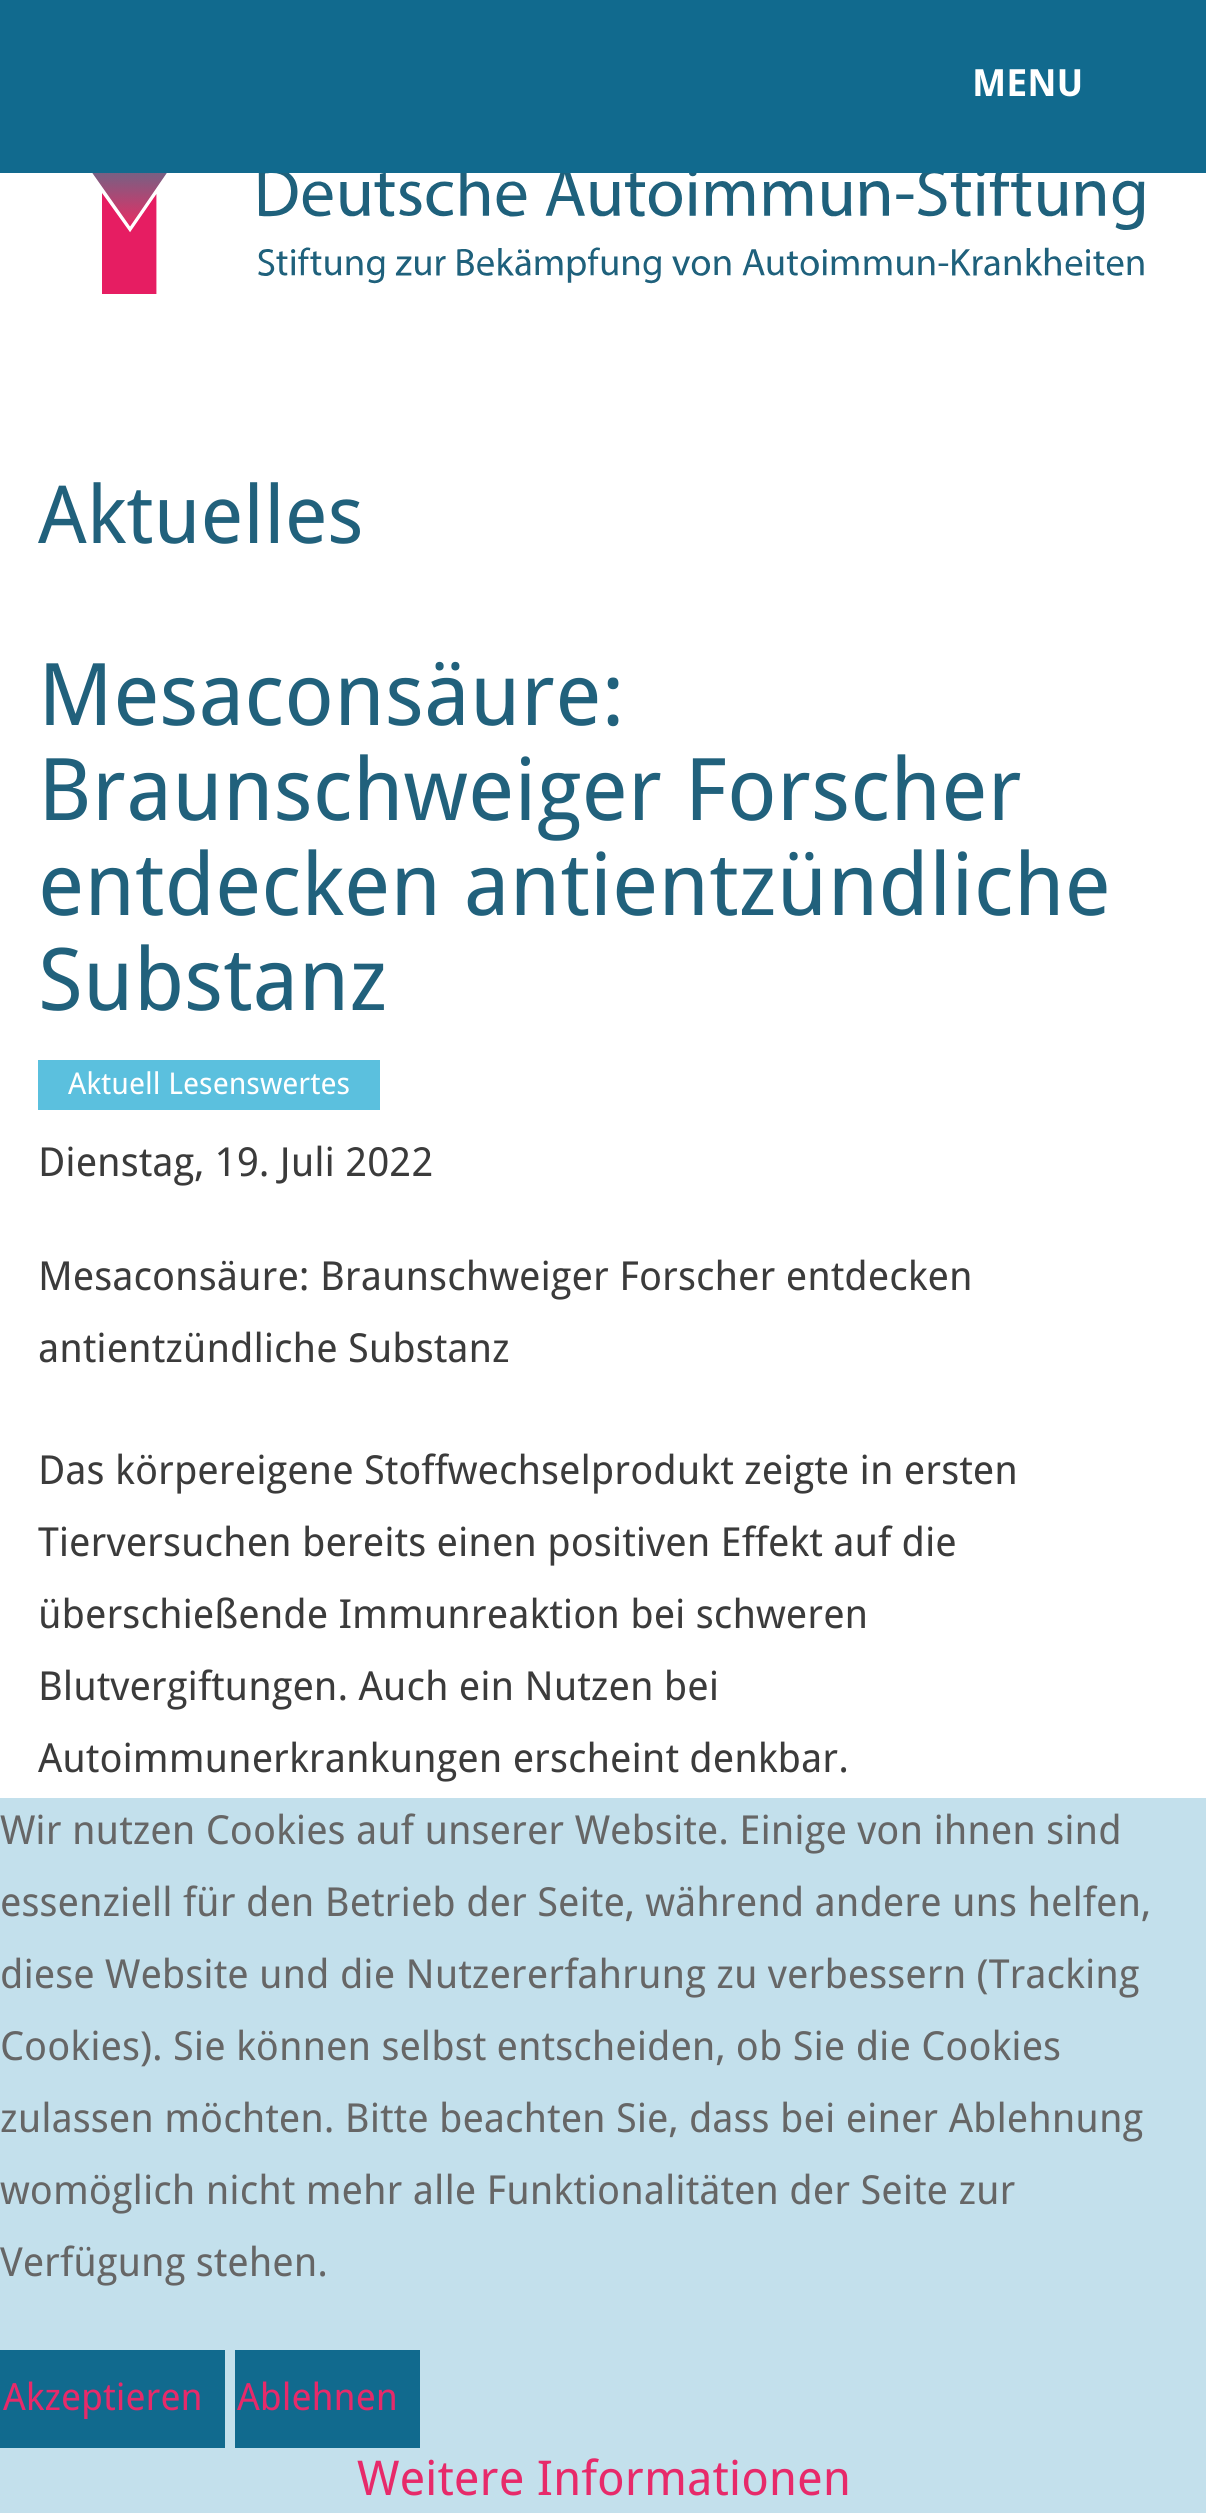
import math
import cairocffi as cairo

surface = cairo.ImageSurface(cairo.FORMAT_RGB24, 1206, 2513)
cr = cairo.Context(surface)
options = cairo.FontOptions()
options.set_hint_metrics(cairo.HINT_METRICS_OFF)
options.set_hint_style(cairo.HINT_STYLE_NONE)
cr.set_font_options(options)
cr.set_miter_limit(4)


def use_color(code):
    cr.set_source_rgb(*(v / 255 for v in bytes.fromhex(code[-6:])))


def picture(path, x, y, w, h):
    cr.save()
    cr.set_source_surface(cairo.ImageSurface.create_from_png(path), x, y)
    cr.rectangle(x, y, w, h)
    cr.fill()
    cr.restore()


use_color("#ffffff")
cr.paint()
use_color("#116a8e")
cr.rectangle(0, 0, 1206, 173)
cr.fill()
cr.select_font_face("Droid Sans", cairo.FONT_SLANT_NORMAL, cairo.FONT_WEIGHT_BOLD)
cr.set_font_size(37.5)
use_color("#ffffff")
cr.move_to(972, 96)
cr.show_text("MENU")
picture("img1.png", 92, 173, 1053, 121)
cr.select_font_face("Droid Sans")
cr.set_font_size(80)
use_color("#21617c")
cr.move_to(38, 543)
cr.show_text("Aktuelles")
cr.set_font_size(86.4)
cr.move_to(38, 725)
cr.show_text("Mesaconsäure:")
cr.move_to(38, 820)
cr.show_text("Braunschweiger Forscher")
cr.move_to(38, 915)
cr.show_text("entdecken antientzündliche")
cr.move_to(38, 1010)
cr.show_text("Substanz")
use_color("#5bc0de")
cr.rectangle(38, 1060, 342, 50)
cr.fill()
cr.set_font_size(30)
use_color("#ffffff")
cr.move_to(68, 1094)
cr.show_text("Aktuell Lesenswertes")
cr.set_font_size(40)
use_color("#3b3b3b")
cr.move_to(38, 1176)
cr.show_text("Dienstag, 19. Juli 2022")
cr.move_to(38, 1290)
cr.show_text("Mesaconsäure: Braunschweiger Forscher entdecken")
cr.move_to(38, 1362)
cr.show_text("antientzündliche Substanz")
cr.move_to(38, 1484)
cr.show_text("Das körpereigene Stoffwechselprodukt zeigte in ersten")
cr.move_to(38, 1556)
cr.show_text("Tierversuchen bereits einen positiven Effekt auf die")
cr.move_to(38, 1628)
cr.show_text("überschießende Immunreaktion bei schweren")
cr.move_to(38, 1700)
cr.show_text("Blutvergiftungen. Auch ein Nutzen bei")
cr.move_to(38, 1772)
cr.show_text("Autoimmunerkrankungen erscheint denkbar.")
use_color("#c3e0ec")
cr.rectangle(0, 1798, 1206, 715)
cr.fill()
use_color("#666666")
cr.move_to(0, 1844)
cr.show_text("Wir nutzen Cookies auf unserer Website. Einige von ihnen sind")
cr.move_to(0, 1916)
cr.show_text("essenziell für den Betrieb der Seite, während andere uns helfen,")
cr.move_to(0, 1988)
cr.show_text("diese Website und die Nutzererfahrung zu verbessern (Tracking")
cr.move_to(0, 2060)
cr.show_text("Cookies). Sie können selbst entscheiden, ob Sie die Cookies")
cr.move_to(0, 2132)
cr.show_text("zulassen möchten. Bitte beachten Sie, dass bei einer Ablehnung")
cr.move_to(0, 2204)
cr.show_text("womöglich nicht mehr alle Funktionalitäten der Seite zur")
cr.move_to(0, 2276)
cr.show_text("Verfügung stehen.")
use_color("#116a8e")
cr.rectangle(0, 2350, 225, 98)
cr.fill()
cr.set_font_size(37.5)
use_color("#e72a6a")
cr.move_to(3, 2410)
cr.show_text("Akzeptieren")
use_color("#116a8e")
cr.rectangle(235, 2350, 185, 98)
cr.fill()
use_color("#e72a6a")
cr.move_to(237, 2410)
cr.show_text("Ablehnen")
cr.set_font_size(48)
cr.move_to(357, 2495)
cr.show_text("Weitere Informationen")
surface.write_to_png("result.png")
